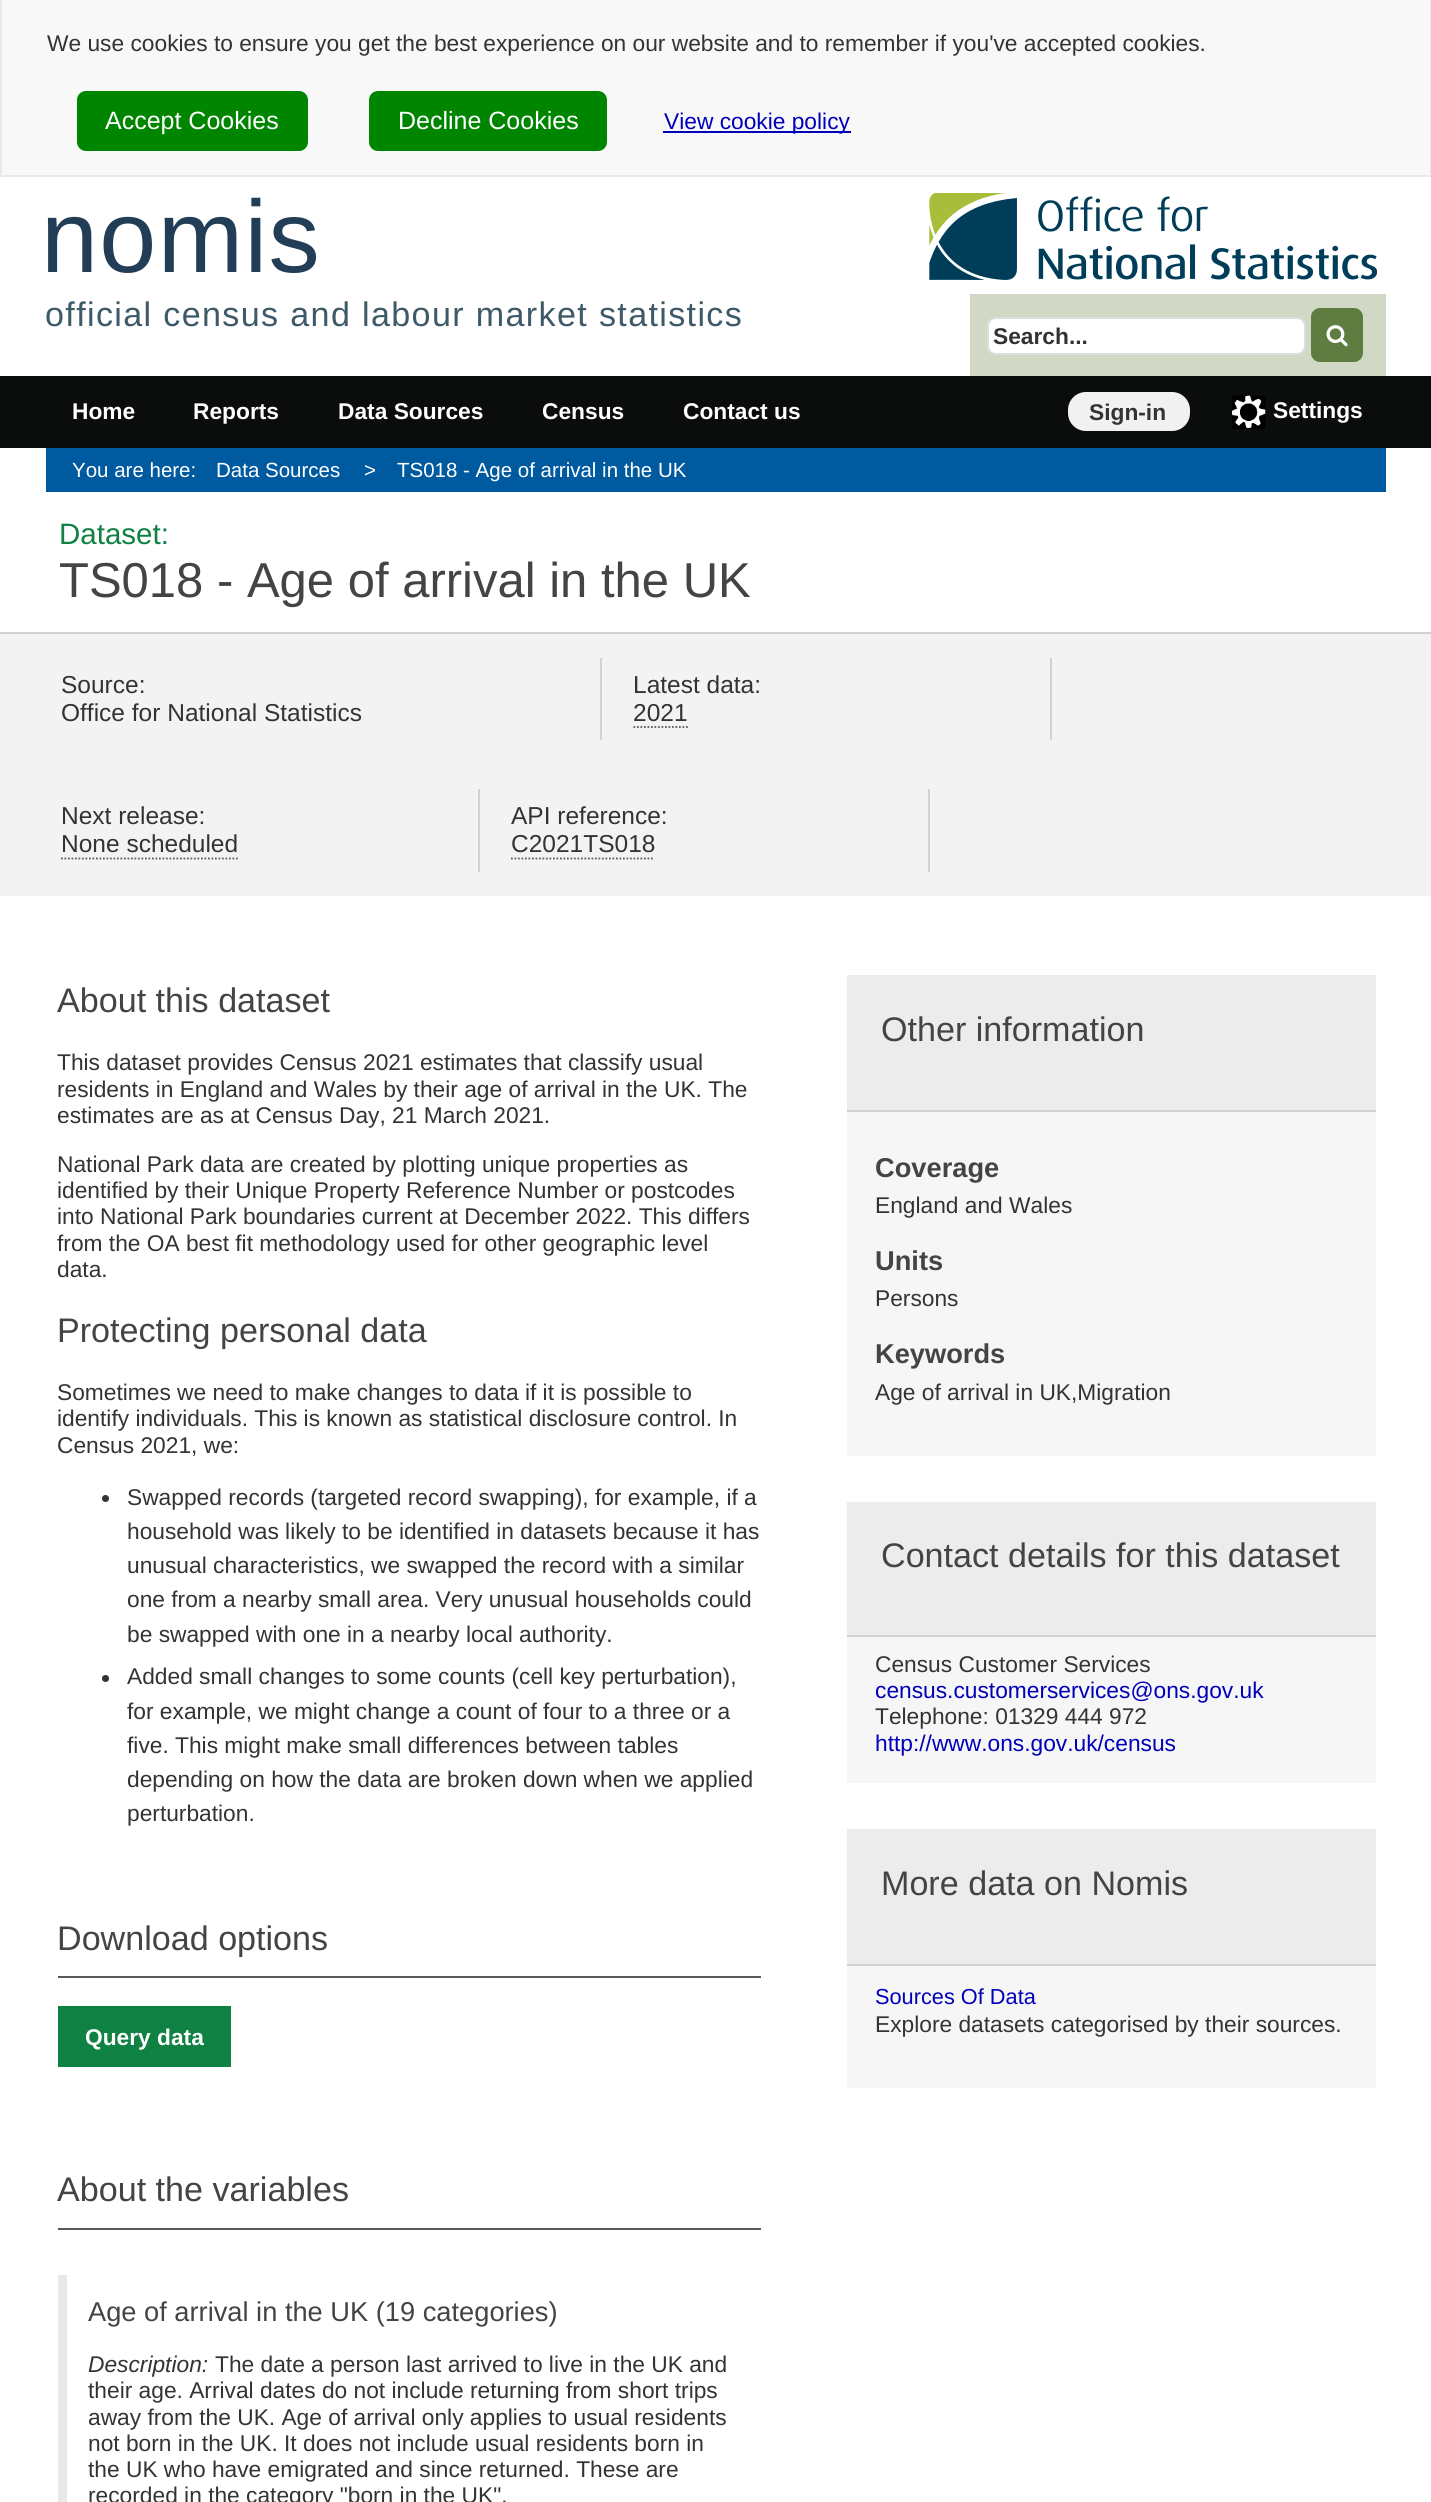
import math
import cairocffi as cairo

surface = cairo.ImageSurface(cairo.FORMAT_RGB24, 1431, 2502)
cr = cairo.Context(surface)
options = cairo.FontOptions()
options.set_hint_metrics(cairo.HINT_METRICS_OFF)
options.set_hint_style(cairo.HINT_STYLE_NONE)
cr.set_font_options(options)
cr.set_miter_limit(4)


def use_color(code):
    cr.set_source_rgb(*(v / 255 for v in bytes.fromhex(code[-6:])))


def spaced_text(x, y, s, letter, word):
    cr.move_to(x, y)
    for ch in s:
        cr.show_text(ch)
        cr.rel_move_to(letter + word * (ch == ' '), 0)


def round_rect(x, y, w, h, r):
    cr.new_sub_path()
    for i, (u, v) in enumerate([(x + w - r, y + h - r), (x + r, y + h - r), (x + r, y + r), (x + w - r, y + r)]):
        cr.arc(u, v, r, i * math.pi / 2, (i + 1) * math.pi / 2)
    cr.close_path()


def picture(path, x, y, w, h):
    cr.save()
    cr.set_source_surface(cairo.ImageSurface.create_from_png(path), x, y)
    cr.rectangle(x, y, w, h)
    cr.fill()
    cr.restore()


use_color("#ffffff")
cr.paint()
use_color("#f8f8f8")
cr.rectangle(2, 0, 1428, 175)
cr.fill()
use_color("#e9e9e9")
cr.rectangle(1430, 0, 1, 177)
cr.fill()
cr.rectangle(0, 175, 1431, 2)
cr.fill()
cr.rectangle(0, 0, 2, 177)
cr.fill()
cr.select_font_face("Liberation Sans")
cr.set_font_size(22.75)
use_color("#333333")
cr.move_to(47, 51)
cr.show_text("We use cookies to ensure you get the best experience on our website and to remember if you've accepted cookies.")
use_color("#008500")
round_rect(79, 93, 227, 56, 7)
cr.fill_preserve()
cr.set_line_width(4)
cr.stroke()
cr.set_font_size(25)
use_color("#ffffff")
cr.move_to(105, 129)
cr.show_text("Accept Cookies")
use_color("#008500")
round_rect(371, 93, 234, 56, 7)
cr.fill_preserve()
cr.stroke()
use_color("#ffffff")
cr.move_to(398, 129)
cr.show_text("Decline Cookies")
use_color("#0000bb")
cr.rectangle(663, 131, 188, 2)
cr.fill()
cr.set_font_size(22.75)
cr.move_to(664, 129)
cr.show_text("View cookie policy")
cr.set_font_size(102.5)
use_color("#223d56")
spaced_text(41, 272, "nomis", 1.35, 0)
cr.set_font_size(34.1)
use_color("#3e5968")
spaced_text(45, 326, "official census and labour market statistics", 1.35, 0)
picture("img1.png", 929, 193, 448, 87)
use_color("#d1d9c6")
cr.rectangle(970, 294, 416, 82)
cr.fill()
use_color("#ffffff")
round_rect(988, 318, 317, 36, 8)
cr.fill_preserve()
use_color("#dddddd")
cr.set_line_width(2)
cr.stroke()
cr.select_font_face("Liberation Sans", cairo.FONT_SLANT_NORMAL, cairo.FONT_WEIGHT_BOLD)
cr.set_font_size(22.75)
use_color("#333333")
cr.move_to(993, 344)
cr.show_text("Search...")
use_color("#5f7d41")
round_rect(1311, 308, 52, 54, 9)
cr.fill()
picture("img2.png", 1326, 325, 22, 22)
use_color("#0b0c0c")
cr.rectangle(0, 376, 1431, 72)
cr.fill()
use_color("#ffffff")
cr.move_to(72, 419)
cr.show_text("Home")
cr.move_to(193, 419)
cr.show_text("Reports")
cr.move_to(338, 419)
cr.show_text("Data Sources")
cr.move_to(542, 419)
cr.show_text("Census")
cr.move_to(683, 419)
cr.show_text("Contact us")
use_color("#f1f1f1")
round_rect(1068, 392, 122, 39, 18)
cr.fill()
use_color("#333333")
cr.move_to(1089, 420)
cr.show_text("Sign-in")
picture("img3.png", 1232, 395, 34, 34)
use_color("#ffffff")
cr.move_to(1273, 418)
cr.show_text("Settings")
use_color("#005aa0")
cr.rectangle(46, 448, 1340, 44)
cr.fill()
cr.select_font_face("Liberation Sans")
cr.set_font_size(20.5)
use_color("#ffffff")
cr.move_to(72, 477)
cr.show_text("You are here:")
cr.move_to(216, 477)
cr.show_text("Data Sources")
cr.move_to(364, 477)
cr.show_text(">")
cr.move_to(397, 477)
cr.show_text("TS018 - Age of arrival in the UK")
cr.set_font_size(29.5)
use_color("#0f8243")
cr.move_to(59, 544)
cr.show_text("Dataset:")
cr.set_font_size(49)
use_color("#444444")
cr.move_to(59, 597)
cr.show_text("TS018 - Age of arrival in the UK")
use_color("#f3f3f3")
cr.rectangle(0, 634, 1431, 262)
cr.fill()
use_color("#d0d2d3")
cr.rectangle(0, 632, 1431, 2)
cr.fill()
cr.rectangle(600, 658, 2, 82)
cr.fill()
cr.set_font_size(24.5)
use_color("#333333")
cr.move_to(61, 693)
cr.show_text("Source:")
cr.move_to(61, 721)
cr.show_text("Office for National Statistics")
use_color("#d0d2d3")
cr.rectangle(1050, 658, 2, 82)
cr.fill()
use_color("#333333")
cr.move_to(633, 693)
cr.show_text("Latest data:")
cr.new_path()
cr.move_to(633.5, 727)
cr.line_to(688, 727)
use_color("#58595b")
cr.set_line_width(1.8)
cr.set_dash([1.75, 1.75])
cr.stroke()
use_color("#333333")
cr.move_to(633, 721)
cr.show_text("2021")
use_color("#d0d2d3")
cr.rectangle(478, 789, 2, 83)
cr.fill()
use_color("#333333")
cr.move_to(61, 824)
cr.show_text("Next release:")
cr.new_path()
cr.move_to(61, 858.5)
cr.line_to(238, 858.5)
use_color("#58595b")
cr.stroke()
use_color("#333333")
cr.move_to(61, 852)
cr.show_text("None scheduled")
use_color("#d0d2d3")
cr.rectangle(928, 789, 2, 83)
cr.fill()
use_color("#333333")
cr.move_to(511, 824)
cr.show_text("API reference:")
cr.new_path()
cr.move_to(511, 858.5)
cr.line_to(654.5, 858.5)
use_color("#58595b")
cr.stroke()
use_color("#333333")
cr.move_to(511, 852)
cr.show_text("C2021TS018")
cr.set_font_size(34.1)
use_color("#444444")
cr.move_to(57, 1012)
cr.show_text("About this dataset")
cr.set_font_size(22.75)
use_color("#333333")
cr.move_to(57, 1070)
cr.show_text("This dataset provides Census 2021 estimates that classify usual")
cr.move_to(57, 1097)
cr.show_text("residents in England and Wales by their age of arrival in the UK. The")
cr.move_to(57, 1123)
cr.show_text("estimates are as at Census Day, 21 March 2021.")
cr.move_to(57, 1172)
cr.show_text("National Park data are created by plotting unique properties as")
cr.move_to(57, 1198)
cr.show_text("identified by their Unique Property Reference Number or postcodes")
cr.move_to(57, 1224)
cr.show_text("into National Park boundaries current at December 2022. This differs")
cr.move_to(57, 1251)
cr.show_text("from the OA best fit methodology used for other geographic level")
cr.move_to(57, 1277)
cr.show_text("data.")
cr.set_font_size(34.1)
use_color("#444444")
cr.move_to(57, 1342)
cr.show_text("Protecting personal data")
cr.set_font_size(22.75)
use_color("#333333")
cr.move_to(57, 1400)
cr.show_text("Sometimes we need to make changes to data if it is possible to")
cr.move_to(57, 1426)
cr.show_text("identify individuals. This is known as statistical disclosure control. In")
cr.move_to(57, 1453)
cr.show_text("Census 2021, we:")
cr.new_path()
cr.arc(105.5, 1498.5, 3.5, 0, 2 * math.pi)
cr.fill()
cr.move_to(127, 1505)
cr.show_text("Swapped records (targeted record swapping), for example, if a")
cr.move_to(127, 1539)
cr.show_text("household was likely to be identified in datasets because it has")
cr.move_to(127, 1573)
cr.show_text("unusual characteristics, we swapped the record with a similar")
cr.move_to(127, 1607)
cr.show_text("one from a nearby small area. Very unusual households could")
cr.move_to(127, 1642)
cr.show_text("be swapped with one in a nearby local authority.")
cr.new_path()
cr.arc(105.5, 1678.5, 3.5, 0, 2 * math.pi)
cr.fill()
cr.move_to(127, 1684)
cr.show_text("Added small changes to some counts (cell key perturbation),")
cr.move_to(127, 1719)
cr.show_text("for example, we might change a count of four to a three or a")
cr.move_to(127, 1753)
cr.show_text("five. This might make small differences between tables")
cr.move_to(127, 1787)
cr.show_text("depending on how the data are broken down when we applied")
cr.move_to(127, 1821)
cr.show_text("perturbation.")
use_color("#58595b")
cr.rectangle(58, 1976, 703, 2)
cr.fill()
cr.set_font_size(34.1)
use_color("#444444")
cr.move_to(57, 1950)
cr.show_text("Download options")
use_color("#0f8243")
cr.rectangle(58, 2006, 173, 61)
cr.fill()
cr.select_font_face("Liberation Sans", cairo.FONT_SLANT_NORMAL, cairo.FONT_WEIGHT_BOLD)
cr.set_font_size(22.75)
use_color("#ffffff")
cr.move_to(85, 2045)
cr.show_text("Query data")
use_color("#58595b")
cr.rectangle(58, 2228, 703, 2)
cr.fill()
cr.select_font_face("Liberation Sans")
cr.set_font_size(34.1)
use_color("#444444")
cr.move_to(57, 2201)
cr.show_text("About the variables")
use_color("#e8e8e8")
cr.rectangle(58, 2275, 9, 227)
cr.fill()
cr.set_font_size(27.25)
use_color("#444444")
cr.move_to(88, 2321)
cr.show_text("Age of arrival in the UK (19 categories)")
cr.select_font_face("Liberation Sans", cairo.FONT_SLANT_ITALIC)
cr.set_font_size(22.75)
use_color("#333333")
cr.move_to(88, 2372)
cr.show_text("Description:")
cr.select_font_face("Liberation Sans")
cr.move_to(215, 2372)
cr.show_text("The date a person last arrived to live in the UK and")
cr.move_to(88, 2398)
cr.show_text("their age. Arrival dates do not include returning from short trips")
cr.move_to(88, 2425)
cr.show_text("away from the UK. Age of arrival only applies to usual residents")
cr.move_to(88, 2451)
cr.show_text("not born in the UK. It does not include usual residents born in")
cr.move_to(88, 2477)
cr.show_text("the UK who have emigrated and since returned. These are")
cr.move_to(88, 2503)
cr.show_text("recorded in the category \"born in the UK\".")
use_color("#ececec")
cr.rectangle(847, 975, 529, 135)
cr.fill()
cr.set_font_size(34.1)
use_color("#444444")
cr.move_to(881, 1041)
cr.show_text("Other information")
use_color("#f6f6f6")
cr.rectangle(847, 1112, 529, 344)
cr.fill()
use_color("#d0d2d3")
cr.rectangle(847, 1110, 529, 2)
cr.fill()
cr.select_font_face("Liberation Sans", cairo.FONT_SLANT_NORMAL, cairo.FONT_WEIGHT_BOLD)
cr.set_font_size(27.25)
use_color("#444444")
cr.move_to(875, 1177)
cr.show_text("Coverage")
cr.select_font_face("Liberation Sans")
cr.set_font_size(22.75)
use_color("#333333")
cr.move_to(875, 1213)
cr.show_text("England and Wales")
cr.select_font_face("Liberation Sans", cairo.FONT_SLANT_NORMAL, cairo.FONT_WEIGHT_BOLD)
cr.set_font_size(27.25)
use_color("#444444")
cr.move_to(875, 1270)
cr.show_text("Units")
cr.select_font_face("Liberation Sans")
cr.set_font_size(22.75)
use_color("#333333")
cr.move_to(875, 1306)
cr.show_text("Persons")
cr.select_font_face("Liberation Sans", cairo.FONT_SLANT_NORMAL, cairo.FONT_WEIGHT_BOLD)
cr.set_font_size(27.25)
use_color("#444444")
cr.move_to(875, 1363)
cr.show_text("Keywords")
cr.select_font_face("Liberation Sans")
cr.set_font_size(22.75)
use_color("#333333")
cr.move_to(875, 1400)
cr.show_text("Age of arrival in UK,Migration")
use_color("#ececec")
cr.rectangle(847, 1502, 529, 133)
cr.fill()
cr.set_font_size(34.1)
use_color("#444444")
cr.move_to(881, 1567)
cr.show_text("Contact details for this dataset")
use_color("#f6f6f6")
cr.rectangle(847, 1637, 529, 146)
cr.fill()
use_color("#d0d2d3")
cr.rectangle(847, 1635, 529, 2)
cr.fill()
cr.set_font_size(22.75)
use_color("#333333")
cr.move_to(875, 1672)
cr.show_text("Census Customer Services")
use_color("#0000bb")
cr.move_to(875, 1698)
cr.show_text("census.customerservices@ons.gov.uk")
use_color("#333333")
cr.move_to(875, 1724)
cr.show_text("Telephone: 01329 444 972")
use_color("#0000bb")
cr.move_to(875, 1751)
cr.show_text("http://www.ons.gov.uk/census")
use_color("#ececec")
cr.rectangle(847, 1829, 529, 135)
cr.fill()
cr.set_font_size(34.1)
use_color("#444444")
cr.move_to(881, 1895)
cr.show_text("More data on Nomis")
use_color("#f6f6f6")
cr.rectangle(847, 1966, 529, 122)
cr.fill()
use_color("#d0d2d3")
cr.rectangle(847, 1964, 529, 2)
cr.fill()
cr.set_font_size(21.75)
use_color("#0000bb")
cr.move_to(875, 2004)
cr.show_text("Sources Of Data")
cr.set_font_size(22.75)
use_color("#333333")
cr.move_to(875, 2032)
cr.show_text("Explore datasets categorised by their sources.")
surface.write_to_png("result.png")
